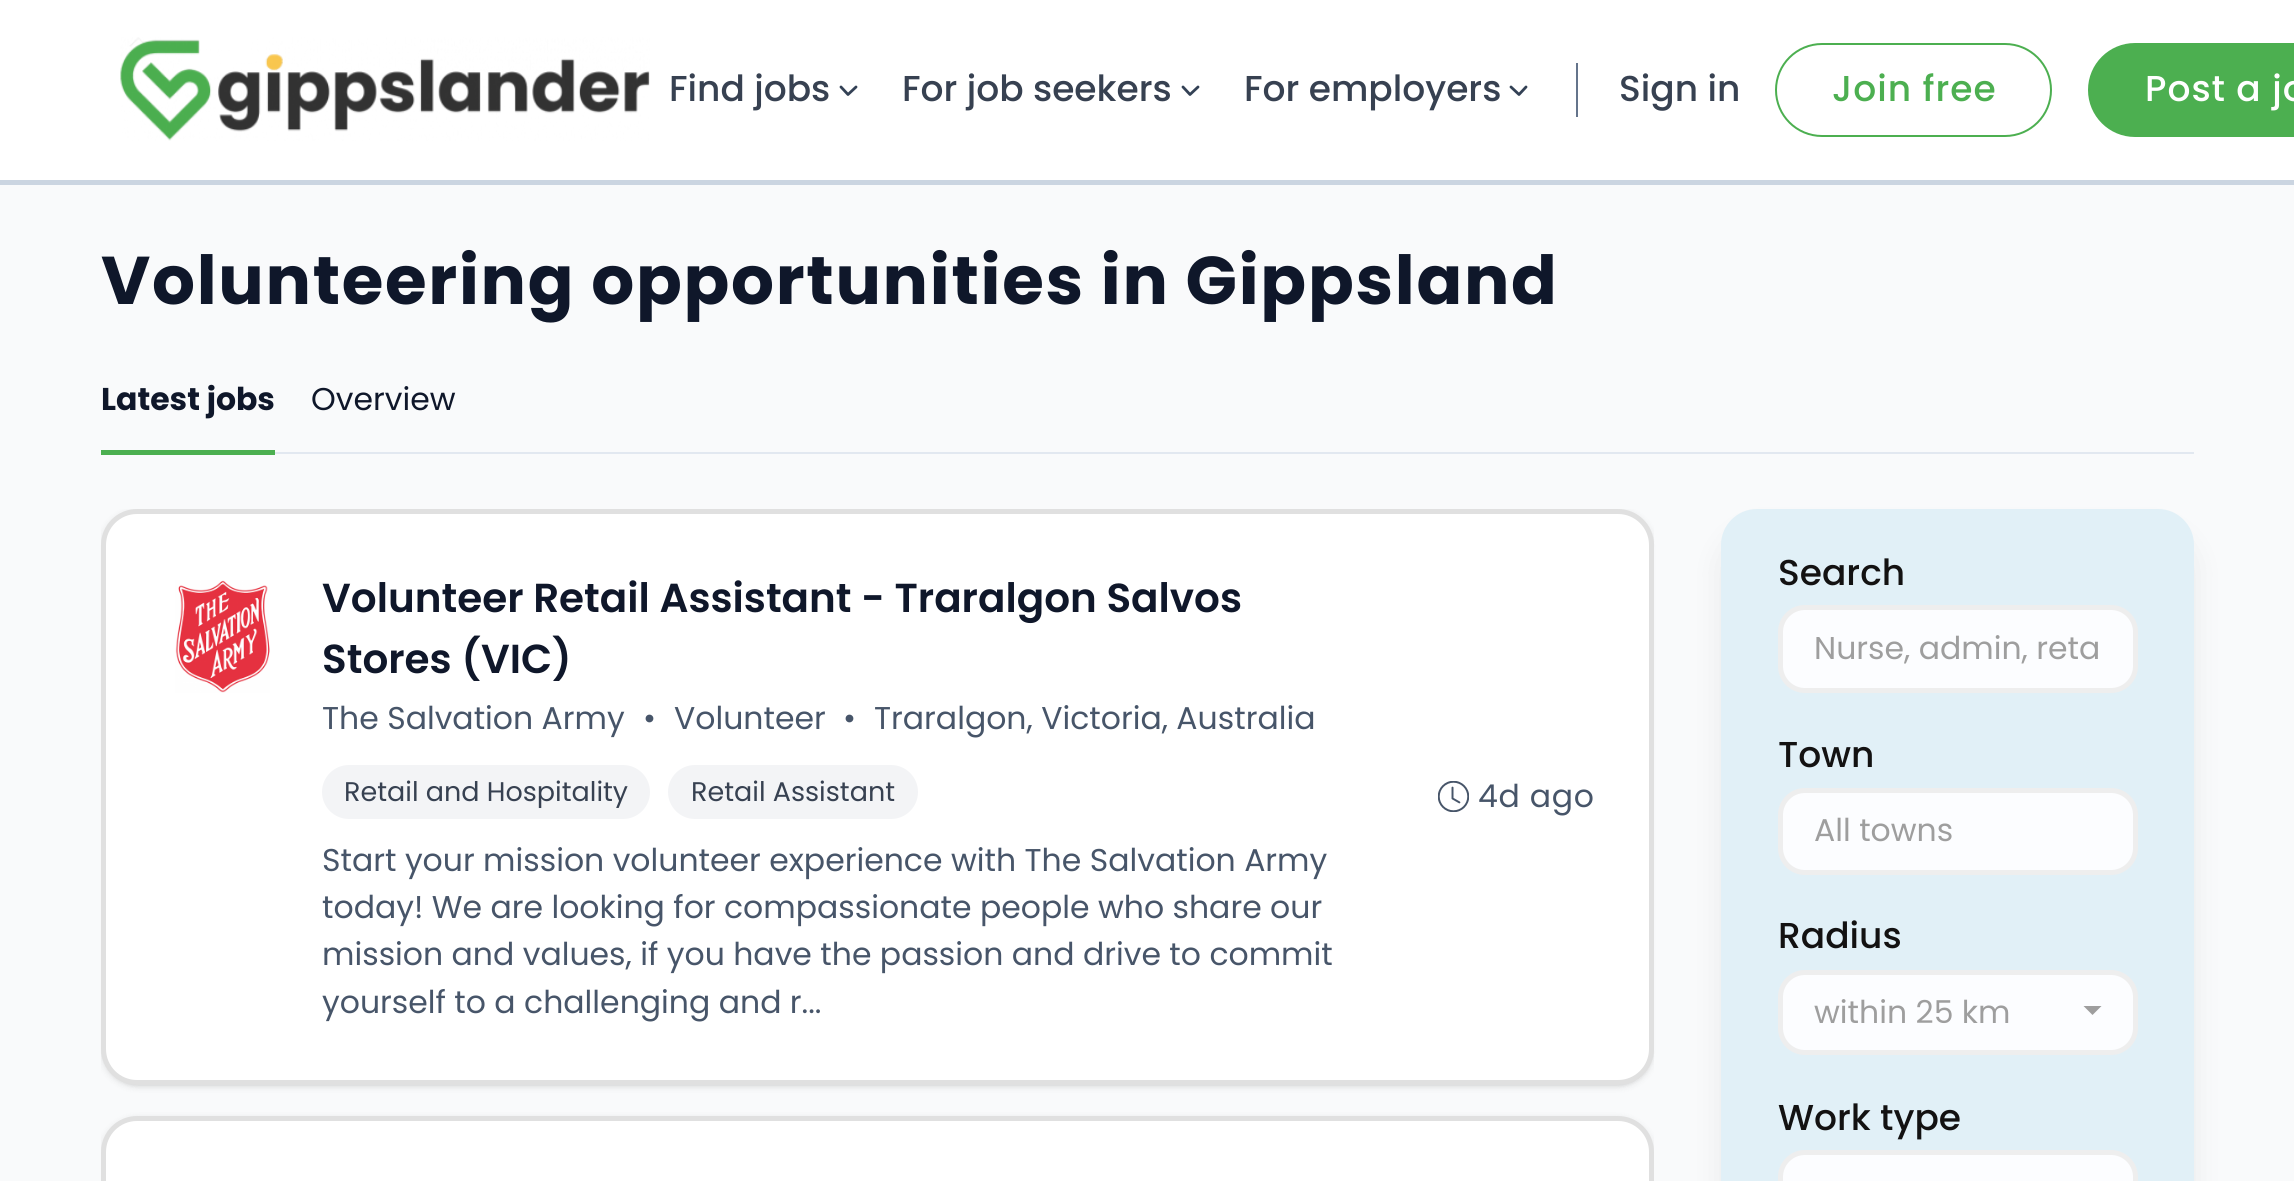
import math
import cairocffi as cairo

surface = cairo.ImageSurface(cairo.FORMAT_RGB24, 2294, 1181)
cr = cairo.Context(surface)
options = cairo.FontOptions()
options.set_hint_metrics(cairo.HINT_METRICS_OFF)
options.set_hint_style(cairo.HINT_STYLE_NONE)
cr.set_font_options(options)
cr.set_miter_limit(4)


def use_color(code):
    cr.set_source_rgb(*(v / 255 for v in bytes.fromhex(code[-6:])))


def spaced_text(x, y, s, letter, word):
    cr.move_to(x, y)
    for ch in s:
        cr.show_text(ch)
        cr.rel_move_to(letter + word * (ch == ' '), 0)


def round_rect(x, y, w, h, r):
    cr.new_sub_path()
    for i, (u, v) in enumerate([(x + w - r, y + h - r), (x + r, y + h - r), (x + r, y + r), (x + w - r, y + r)]):
        cr.arc(u, v, r, i * math.pi / 2, (i + 1) * math.pi / 2)
    cr.close_path()


def shadow(x, y, w, h, r, blur, alpha):
    cr.push_group_with_content(cairo.CONTENT_ALPHA)
    cr.set_operator(cairo.OPERATOR_SOURCE)
    for i in range(15, -16, -2):
        e = blur * i / 6
        if min(w, h) + 2 * e > 0:
            cr.set_source_rgba(0, 0, 0, alpha * math.erfc((i - 1) / 8.5) / 2)
            round_rect(x - e, y - e, w + 2 * e, h + 2 * e, max(0, min(r + e + blur * .6, min(w, h) / 2 + e)))
            cr.fill()
    cr.mask(cr.pop_group())


def picture(path, x, y, w, h):
    cr.save()
    cr.set_source_surface(cairo.ImageSurface.create_from_png(path), x, y)
    cr.rectangle(x, y, w, h)
    cr.fill()
    cr.restore()


use_color("#f9fafb")
cr.paint()
use_color("#ffffff")
cr.rectangle(0, 0, 2294, 180)
cr.fill()
use_color("#cbd5e1")
cr.rectangle(0, 180, 2294, 5)
cr.fill()
picture("img1.png", 120, 37, 530, 104)
cr.select_font_face("Poppins Medium")
cr.set_font_size(36)
use_color("#374151")
cr.move_to(669, 101)
cr.show_text("Find jobs")
cr.new_path()
cr.move_to(841, 87)
cr.line_to(848, 94.5)
cr.line_to(856, 87)
use_color("#334155")
cr.set_line_width(2.8)
cr.set_line_cap(cairo.LINE_CAP_ROUND)
cr.set_line_join(cairo.LINE_JOIN_ROUND)
cr.stroke()
use_color("#374151")
cr.move_to(902, 101)
cr.show_text("For job seekers")
cr.new_path()
cr.move_to(1183, 87)
cr.line_to(1190, 94.5)
cr.line_to(1198, 87)
use_color("#334155")
cr.stroke()
use_color("#374151")
cr.move_to(1244, 101)
cr.show_text("For employers")
cr.new_path()
cr.move_to(1511, 87)
cr.line_to(1519, 94.5)
cr.line_to(1526, 87)
use_color("#334155")
cr.stroke()
use_color("#64748b")
cr.rectangle(1576, 63, 2, 54)
cr.fill()
use_color("#374151")
cr.move_to(1619, 101)
cr.show_text("Sign in")
round_rect(1776, 44, 275, 92, 46)
use_color("#4caf50")
cr.set_line_width(2)
cr.set_line_cap(cairo.LINE_CAP_BUTT)
cr.set_line_join(cairo.LINE_JOIN_MITER)
cr.stroke()
spaced_text(1832, 101, "Join free", 1, 0)
round_rect(2089, 44, 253, 92, 46)
cr.fill_preserve()
cr.stroke()
use_color("#ffffff")
spaced_text(2145, 101, "Post a jo", 1, 0)
cr.select_font_face("Poppins", cairo.FONT_SLANT_NORMAL, cairo.FONT_WEIGHT_BOLD)
cr.set_font_size(67.5)
use_color("#0f172a")
spaced_text(101, 304, "Volunteering opportunities in Gippsland", 1.7, 0)
use_color("#e2e8f0")
cr.rectangle(275, 452, 1919, 2)
cr.fill()
use_color("#4caf50")
cr.rectangle(101, 450, 174, 5)
cr.fill()
cr.set_font_size(31.5)
use_color("#0f172a")
cr.move_to(101, 410)
cr.show_text("Latest jobs")
cr.select_font_face("Poppins")
cr.move_to(311, 410)
cr.show_text("Overview")
use_color("#000000")
shadow(104, 513, 1548, 572, 34, 2, 0.1)
cr.save()
cr.rectangle(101, 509, 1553, 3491)
cr.clip()
shadow(101, 511, 1553, 576, 36, 3.5, 0.1)
cr.restore()
use_color("#ffffff")
round_rect(103.5, 511.5, 1548, 571, 33.5)
cr.fill_preserve()
use_color("#e0e0e0")
cr.set_line_width(5)
cr.stroke()
picture("img2.png", 175, 580, 95, 113)
cr.select_font_face("Poppins SemiBold")
cr.set_font_size(40.5)
use_color("#0f172a")
cr.move_to(322, 612)
cr.show_text("Volunteer Retail Assistant - Traralgon Salvos")
cr.move_to(322, 673)
cr.show_text("Stores (VIC)")
cr.select_font_face("Poppins")
cr.set_font_size(31.5)
use_color("#475569")
cr.move_to(322, 729)
cr.show_text("The Salvation Army")
cr.move_to(643, 729)
cr.show_text("•")
cr.move_to(674, 729)
cr.show_text("Volunteer")
cr.move_to(843, 729)
cr.show_text("•")
cr.move_to(874, 729)
cr.show_text("Traralgon, Victoria, Australia")
use_color("#f3f4f6")
round_rect(322, 765, 328, 54, 27)
cr.fill()
cr.set_font_size(27)
use_color("#374151")
cr.move_to(344, 801)
cr.show_text("Retail and Hospitality")
use_color("#f3f4f6")
round_rect(668, 765, 250, 54, 27)
cr.fill()
use_color("#374151")
cr.move_to(691, 801)
cr.show_text("Retail Assistant")
cr.set_font_size(31.5)
use_color("#475569")
cr.move_to(322, 871)
cr.show_text("Start your mission volunteer experience with The Salvation Army")
cr.move_to(322, 918)
cr.show_text("today! We are looking for compassionate people who share our")
cr.move_to(322, 965)
cr.show_text("mission and values, if you have the passion and drive to commit")
cr.move_to(322, 1013)
cr.show_text("yourself to a challenging and r...")
picture("img3.png", 1438, 781, 31, 31)
spaced_text(1478, 807, "4d ago", 0.75, 0)
cr.save()
cr.rectangle(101, 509, 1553, 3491)
cr.clip()
use_color("#000000")
shadow(101, 1118, 1553, 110, 36, 3.5, 0.1)
cr.restore()
use_color("#ffffff")
round_rect(103.5, 1118.5, 1548, 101, 33.5)
cr.fill_preserve()
use_color("#e0e0e0")
cr.stroke()
use_color("#000000")
shadow(1728, 538, 459, 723, 29, 17, 0.1)
use_color("#e1f0f7")
round_rect(1722, 510, 471, 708, 35)
cr.fill_preserve()
cr.set_line_width(2)
cr.stroke()
cr.select_font_face("Poppins Medium")
cr.set_font_size(36)
use_color("#131212")
cr.move_to(1778, 585)
cr.show_text("Search")
use_color("#fcfdff")
round_rect(1780.5, 607.5, 355, 83, 24.5)
cr.fill_preserve()
use_color("#eeeeee")
cr.set_line_width(5)
cr.stroke()
cr.select_font_face("Poppins")
cr.set_font_size(31.5)
use_color("#9e9e9e")
cr.move_to(1814, 659)
cr.show_text("Nurse, admin, reta")
cr.select_font_face("Poppins Medium")
cr.set_font_size(36)
use_color("#131212")
cr.move_to(1778, 767)
cr.show_text("Town")
use_color("#fcfdff")
round_rect(1780.5, 790.5, 355, 82, 24.5)
cr.fill_preserve()
use_color("#eeeeee")
cr.stroke()
cr.select_font_face("Poppins")
cr.set_font_size(31.5)
use_color("#9e9e9e")
cr.move_to(1814, 841)
cr.show_text("All towns")
cr.select_font_face("Poppins Medium")
cr.set_font_size(36)
use_color("#131212")
cr.move_to(1778, 948)
cr.show_text("Radius")
use_color("#fcfdff")
round_rect(1780.5, 972.5, 355, 80, 24.5)
cr.fill_preserve()
use_color("#eeeeee")
cr.stroke()
cr.select_font_face("Poppins")
cr.set_font_size(31.5)
use_color("#9e9e9e")
cr.move_to(1814, 1023)
cr.show_text("within 25 km")
cr.new_path()
cr.move_to(2083.5, 1006)
cr.line_to(2101.5, 1006)
cr.line_to(2092.5, 1015)
cr.close_path()
cr.fill()
cr.select_font_face("Poppins Medium")
cr.set_font_size(36)
use_color("#131212")
cr.move_to(1778, 1130)
cr.show_text("Work type")
use_color("#fcfdff")
round_rect(1780.5, 1152.5, 355, 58, 24.5)
cr.fill_preserve()
use_color("#eeeeee")
cr.stroke()
surface.write_to_png("result.png")
